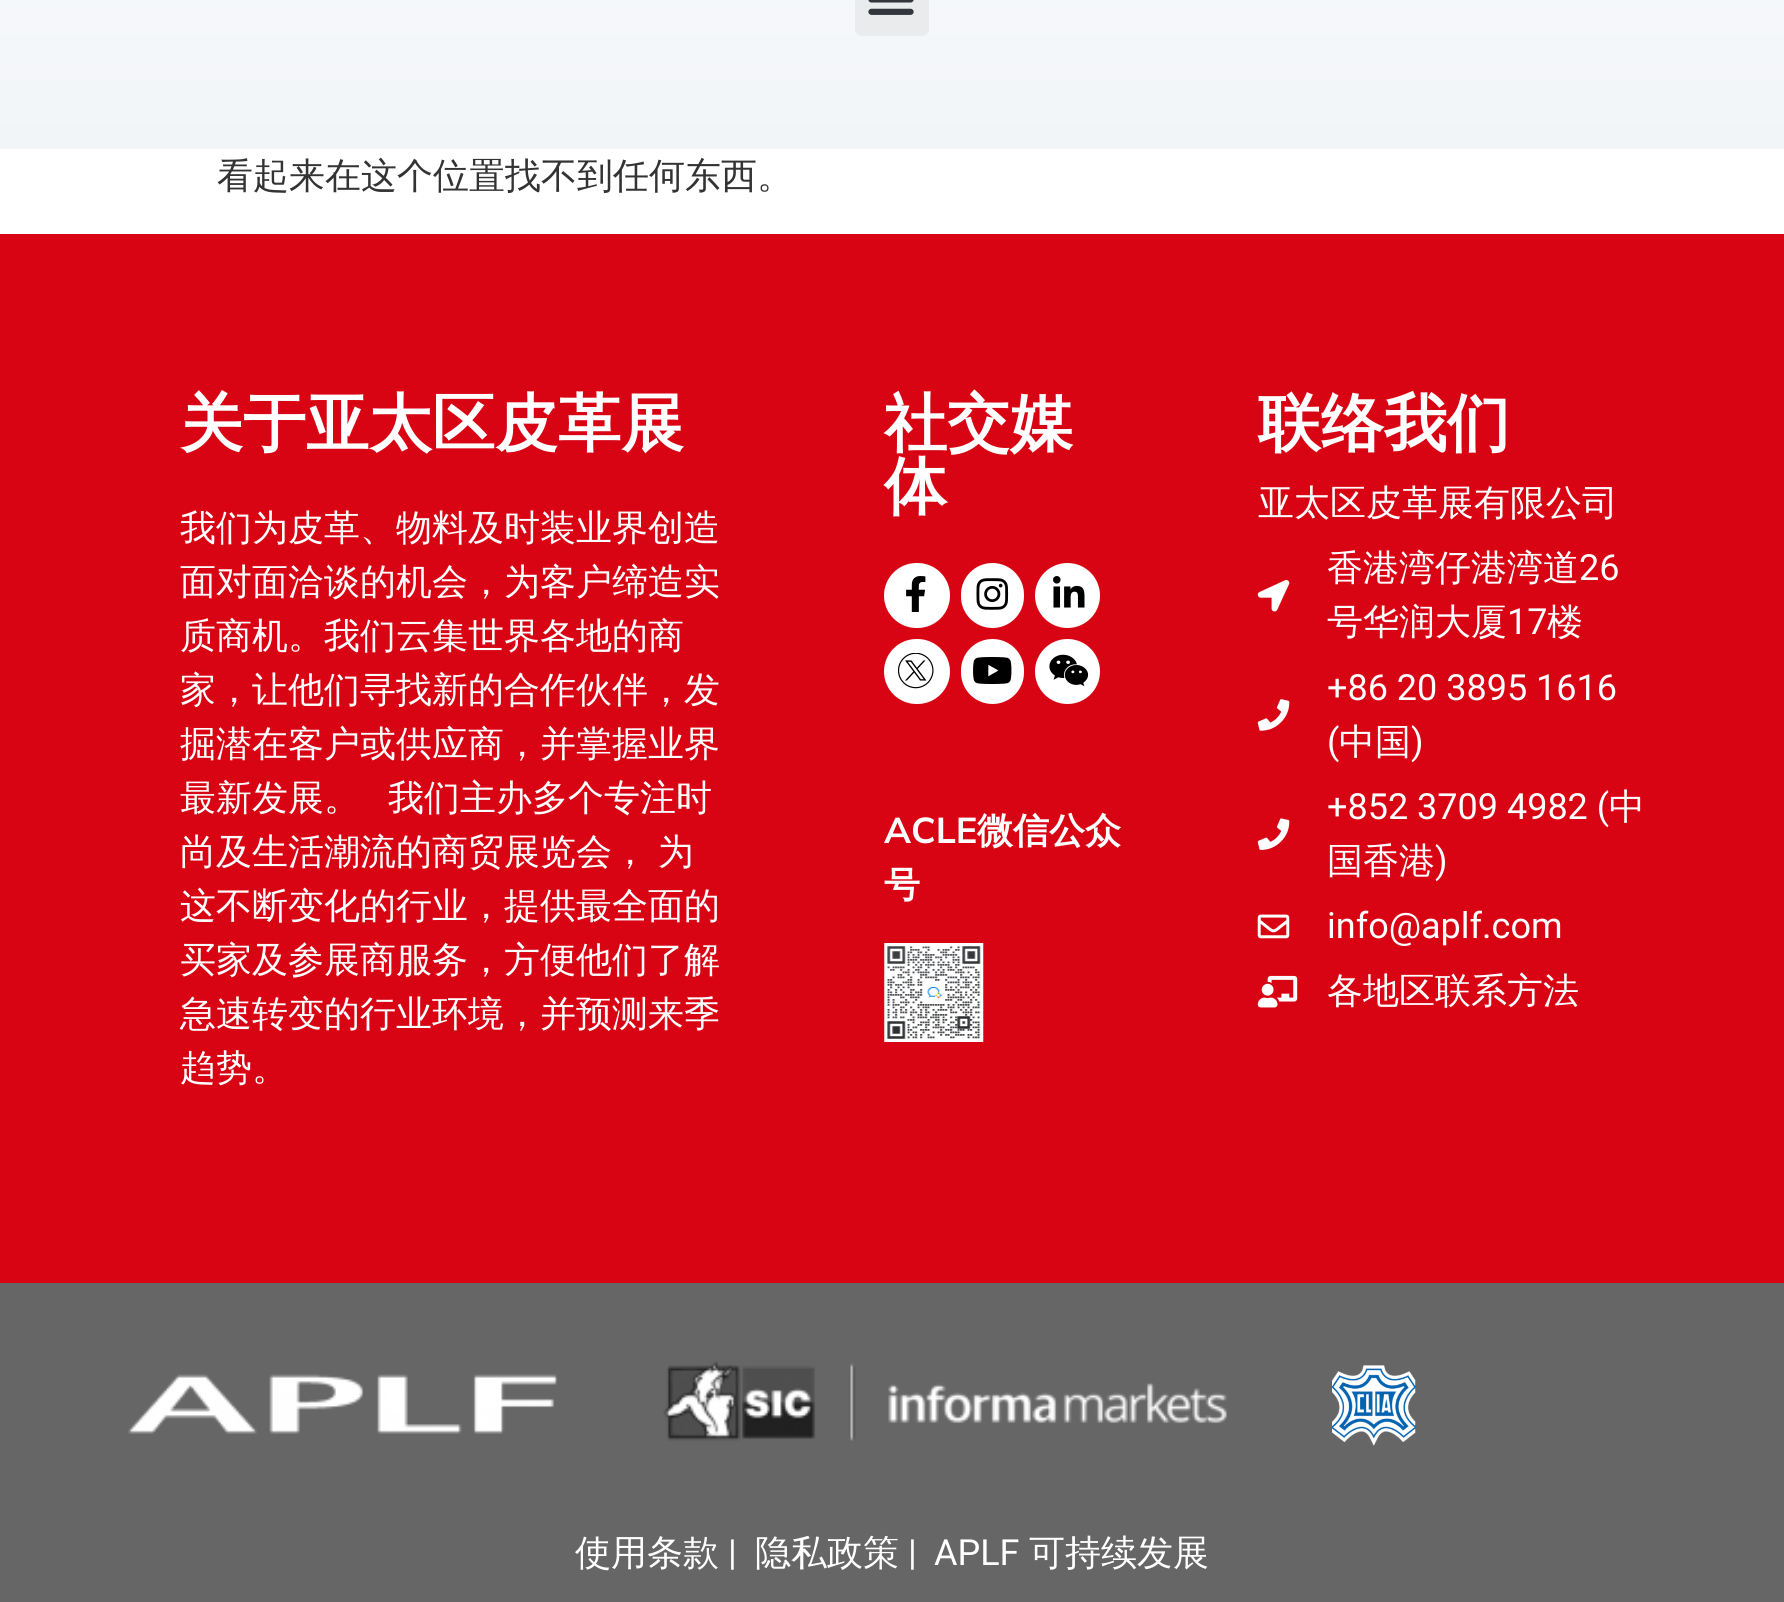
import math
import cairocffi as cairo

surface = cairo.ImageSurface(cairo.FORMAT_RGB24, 1784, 1602)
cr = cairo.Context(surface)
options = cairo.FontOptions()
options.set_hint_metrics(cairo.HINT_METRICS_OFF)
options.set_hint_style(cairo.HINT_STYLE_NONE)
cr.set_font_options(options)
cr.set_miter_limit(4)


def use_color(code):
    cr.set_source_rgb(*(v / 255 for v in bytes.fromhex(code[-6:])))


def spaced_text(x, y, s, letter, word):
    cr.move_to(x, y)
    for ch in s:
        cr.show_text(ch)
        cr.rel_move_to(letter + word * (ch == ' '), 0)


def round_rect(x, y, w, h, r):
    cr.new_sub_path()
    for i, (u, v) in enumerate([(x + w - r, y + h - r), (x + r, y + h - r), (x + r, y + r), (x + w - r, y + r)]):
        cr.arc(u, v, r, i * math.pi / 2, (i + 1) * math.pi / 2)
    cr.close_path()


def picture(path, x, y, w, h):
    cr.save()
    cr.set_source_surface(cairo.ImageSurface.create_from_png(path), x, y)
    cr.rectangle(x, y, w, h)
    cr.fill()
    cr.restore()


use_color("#ffffff")
cr.paint()
gradient = cairo.LinearGradient(892, -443, 892, 149)
gradient.add_color_stop_rgba(0, 1, 1, 1, 1)
gradient.add_color_stop_rgba(1, 0.949, 0.961, 0.973, 1)
cr.set_source(gradient)
cr.rectangle(0, 0, 1784, 149)
cr.fill()
use_color("#e9ebed")
round_rect(855, -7, 74, 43, 7)
cr.fill()
picture("img1.png", 868, 0, 46, 15)
cr.select_font_face("WenQuanYi Zen Hei Medium")
cr.set_font_size(36)
use_color("#333333")
cr.move_to(217, 188)
cr.show_text("看起来在这个位置找不到任何东西。")
use_color("#d90413")
cr.rectangle(0, 234, 1784, 1049)
cr.fill()
cr.select_font_face("WenQuanYi Zen Hei", cairo.FONT_SLANT_NORMAL, cairo.FONT_WEIGHT_BOLD)
cr.set_font_size(63)
use_color("#ffffff")
cr.move_to(180, 445)
cr.show_text("关于亚太区皮革展")
cr.select_font_face("WenQuanYi Zen Hei Medium")
cr.set_font_size(36)
cr.move_to(180, 540)
cr.show_text("我们为皮革、物料及时装业界创造")
cr.move_to(180, 594)
cr.show_text("面对面洽谈的机会，为客户缔造实")
cr.move_to(180, 648)
cr.show_text("质商机。我们云集世界各地的商")
cr.move_to(180, 702)
cr.show_text("家，让他们寻找新的合作伙伴，发")
cr.move_to(180, 756)
cr.show_text("掘潜在客户或供应商，并掌握业界")
cr.move_to(180, 810)
cr.show_text("最新发展。")
cr.move_to(388, 810)
cr.show_text("我们主办多个专注时")
spaced_text(180, 864, "尚及生活潮流的商贸展览会， 为", 0, -1)
cr.move_to(180, 918)
cr.show_text("这不断变化的行业，提供最全面的")
cr.move_to(180, 972)
cr.show_text("买家及参展商服务，方便他们了解")
cr.move_to(180, 1026)
cr.show_text("急速转变的行业环境，并预测来季")
cr.move_to(180, 1080)
cr.show_text("趋势。")
cr.select_font_face("WenQuanYi Zen Hei", cairo.FONT_SLANT_NORMAL, cairo.FONT_WEIGHT_BOLD)
cr.set_font_size(63)
cr.move_to(884, 445)
cr.show_text("社交媒")
cr.move_to(884, 508)
cr.show_text("体")
round_rect(884, 563, 66, 65, 32.5)
cr.fill()
picture("img2.png", 906, 576, 20, 36)
round_rect(961, 563, 63, 65, 31.5)
cr.fill()
picture("img3.png", 976, 578, 33, 32)
cr.arc(1067.5, 595.5, 32.5, 0, 2 * math.pi)
cr.fill()
picture("img4.png", 1053, 576, 32, 32)
round_rect(884, 639, 66, 65, 32.5)
cr.fill()
picture("img5.png", 898, 653, 36, 36)
round_rect(961, 639, 63, 65, 31.5)
cr.fill()
picture("img6.png", 973, 657, 39, 27)
cr.arc(1067.5, 671.5, 32.5, 0, 2 * math.pi)
cr.fill()
picture("img7.png", 1049, 654, 40, 33)
cr.select_font_face("Mulish", cairo.FONT_SLANT_NORMAL, cairo.FONT_WEIGHT_BOLD)
cr.set_font_size(36)
cr.move_to(884, 843)
cr.show_text("ACLE")
cr.select_font_face("WenQuanYi Zen Hei", cairo.FONT_SLANT_NORMAL, cairo.FONT_WEIGHT_BOLD)
cr.move_to(977, 843)
cr.show_text("微信公众")
cr.move_to(884, 897)
cr.show_text("号")
picture("img8.png", 884, 943, 100, 99)
cr.set_font_size(63)
cr.move_to(1258, 445)
cr.show_text("联络我们")
cr.select_font_face("WenQuanYi Zen Hei Medium")
cr.set_font_size(36)
cr.move_to(1258, 515)
cr.show_text("亚太区皮革展有限公司")
picture("img9.png", 1257, 579, 33, 33)
cr.move_to(1327, 580)
cr.show_text("香港湾仔港湾道")
cr.select_font_face("Roboto")
cr.move_to(1579, 580)
cr.show_text("26")
cr.select_font_face("WenQuanYi Zen Hei Medium")
cr.move_to(1327, 634)
cr.show_text("号华润大厦")
cr.select_font_face("Roboto")
cr.move_to(1507, 634)
cr.show_text("17")
cr.select_font_face("WenQuanYi Zen Hei Medium")
cr.move_to(1547, 634)
cr.show_text("楼")
picture("img10.png", 1257, 699, 33, 32)
cr.select_font_face("Roboto")
cr.move_to(1327, 700)
cr.show_text("+86 20 3895 1616")
cr.move_to(1327, 754)
cr.show_text("(")
cr.select_font_face("WenQuanYi Zen Hei Medium")
cr.move_to(1339, 754)
cr.show_text("中国")
cr.select_font_face("Roboto")
cr.move_to(1411, 754)
cr.show_text(")")
picture("img11.png", 1257, 818, 33, 32)
cr.move_to(1327, 819)
cr.show_text("+852 3709 4982 (")
cr.select_font_face("WenQuanYi Zen Hei Medium")
cr.move_to(1609, 819)
cr.show_text("中")
cr.move_to(1327, 873)
cr.show_text("国香港")
cr.select_font_face("Roboto")
cr.move_to(1435, 873)
cr.show_text(")")
picture("img12.png", 1257, 914, 33, 25)
cr.move_to(1327, 938)
cr.show_text("info@aplf.com")
picture("img13.png", 1257, 975, 41, 33)
cr.select_font_face("WenQuanYi Zen Hei Medium")
cr.move_to(1327, 1003)
cr.show_text("各地区联系方法")
use_color("#666666")
cr.rectangle(0, 1283, 1784, 319)
cr.fill()
picture("img14.png", 128, 1374, 430, 60)
picture("img15.png", 663, 1361, 564, 80)
picture("img16.png", 1332, 1365, 84, 81)
use_color("#ffffff")
cr.move_to(575, 1565)
cr.show_text("使用条款")
cr.select_font_face("Roboto")
cr.move_to(728, 1565)
cr.show_text("|")
cr.select_font_face("WenQuanYi Zen Hei Medium")
cr.move_to(755, 1565)
cr.show_text("隐私政策")
cr.select_font_face("Roboto")
cr.move_to(908, 1565)
cr.show_text("|")
cr.move_to(934, 1565)
cr.show_text("APLF")
cr.select_font_face("WenQuanYi Zen Hei Medium")
cr.move_to(1029, 1565)
cr.show_text("可持续发展")
surface.write_to_png("result.png")
